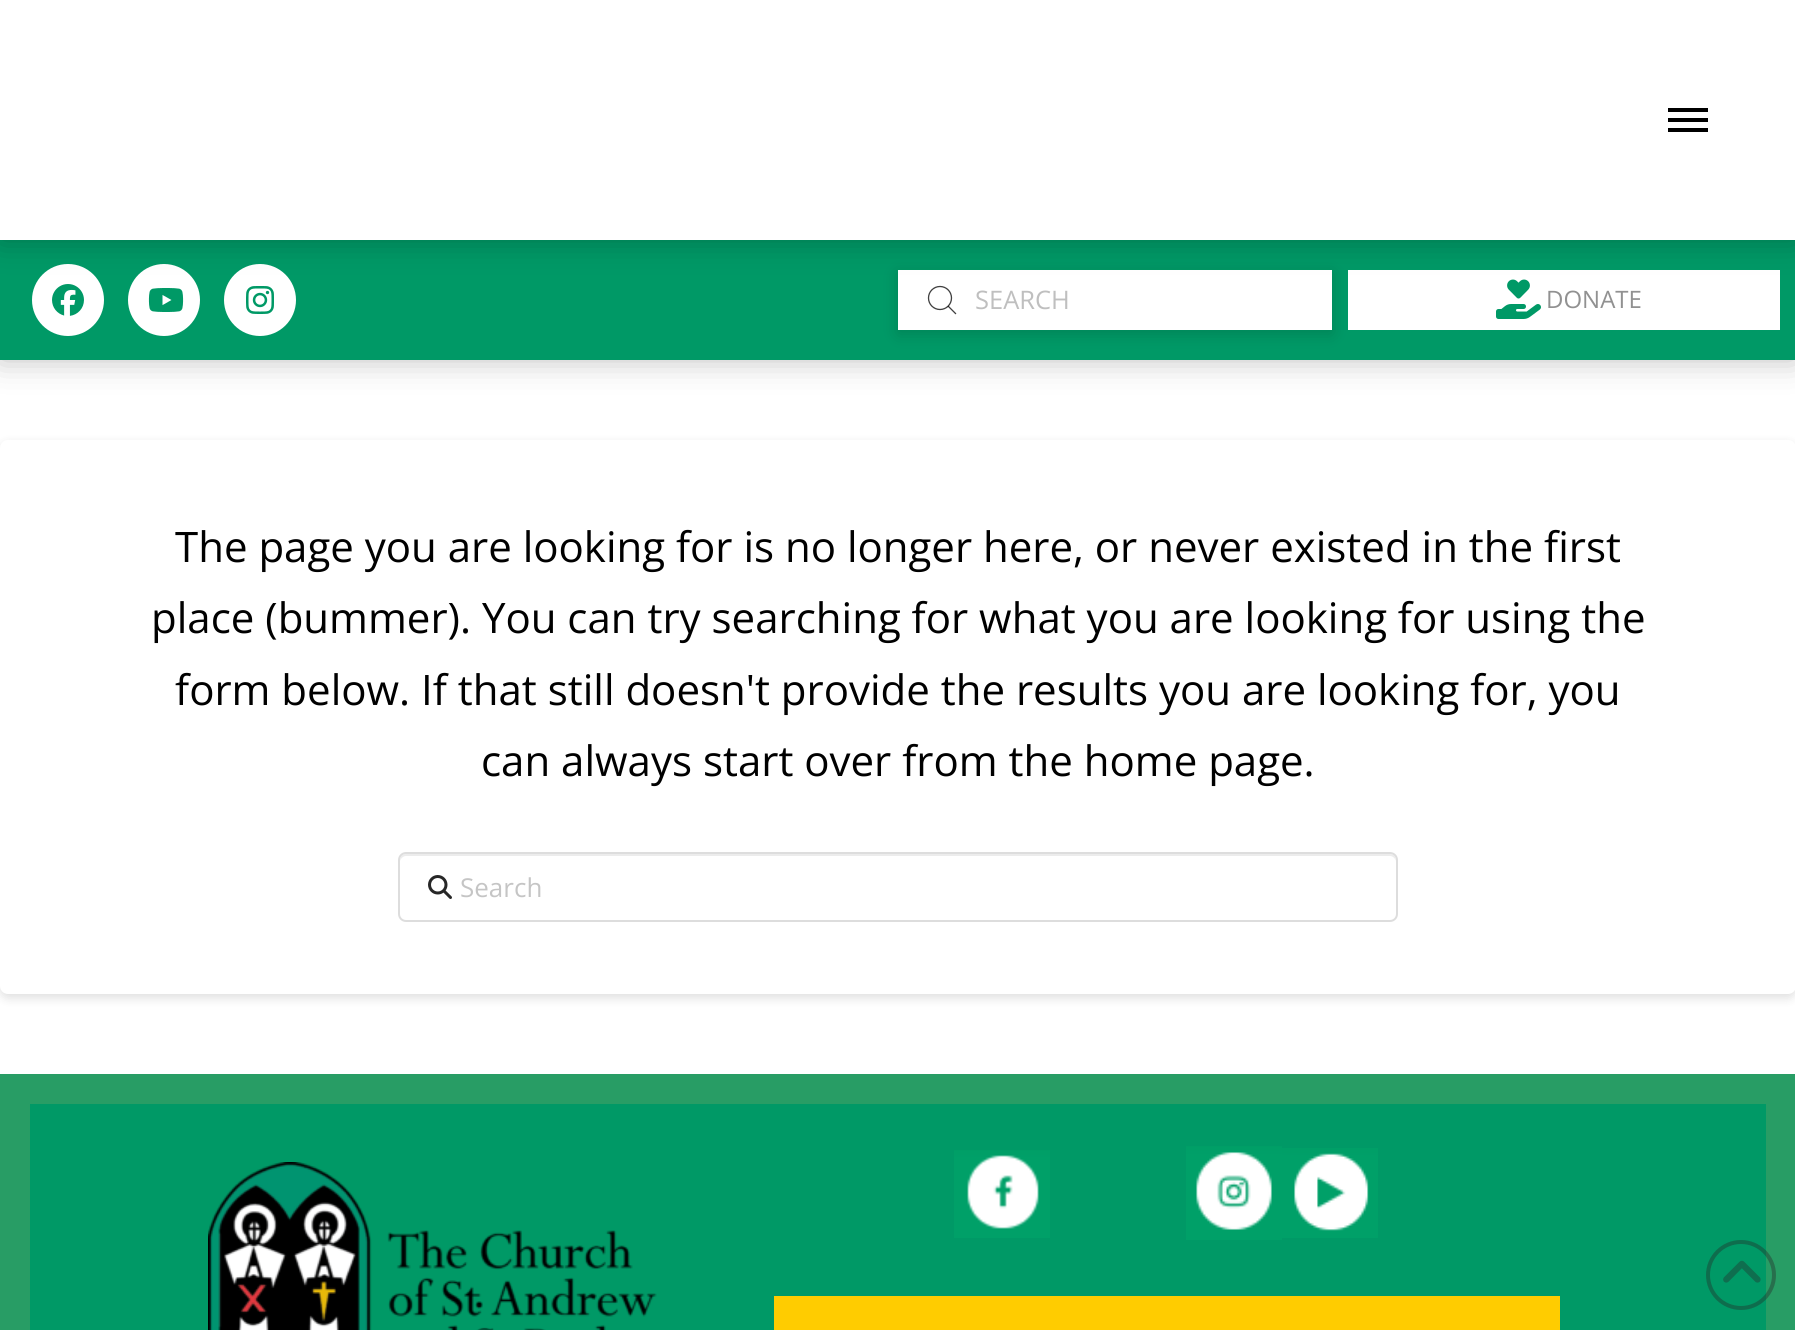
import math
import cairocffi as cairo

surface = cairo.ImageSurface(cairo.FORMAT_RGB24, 1795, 1330)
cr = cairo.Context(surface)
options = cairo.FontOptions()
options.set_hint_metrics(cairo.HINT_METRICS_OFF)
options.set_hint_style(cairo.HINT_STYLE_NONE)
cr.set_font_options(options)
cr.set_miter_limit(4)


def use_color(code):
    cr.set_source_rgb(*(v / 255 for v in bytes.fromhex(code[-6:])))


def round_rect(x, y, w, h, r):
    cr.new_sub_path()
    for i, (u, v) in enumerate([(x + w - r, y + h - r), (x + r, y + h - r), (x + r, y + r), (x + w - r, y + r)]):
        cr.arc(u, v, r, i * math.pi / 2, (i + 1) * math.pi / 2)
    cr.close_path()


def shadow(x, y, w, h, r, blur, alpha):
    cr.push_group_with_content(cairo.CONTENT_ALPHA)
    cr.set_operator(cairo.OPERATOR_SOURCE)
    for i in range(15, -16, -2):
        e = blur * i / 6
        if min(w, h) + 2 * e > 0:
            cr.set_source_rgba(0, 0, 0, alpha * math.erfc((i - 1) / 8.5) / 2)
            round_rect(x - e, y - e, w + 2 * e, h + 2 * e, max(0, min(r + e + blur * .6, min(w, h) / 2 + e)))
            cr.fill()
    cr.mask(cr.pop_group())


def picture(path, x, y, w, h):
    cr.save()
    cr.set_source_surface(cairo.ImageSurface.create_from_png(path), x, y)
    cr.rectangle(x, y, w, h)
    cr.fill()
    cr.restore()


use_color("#ffffff")
cr.paint()
use_color("#000000")
shadow(0, 240, 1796, 120, 0, 16, 0.25)
use_color("#009966")
cr.rectangle(0, 240, 1795, 120)
cr.fill()
use_color("#ffffff")
cr.arc(68, 300, 36, 0, 2 * math.pi)
cr.fill()
picture("img1.png", 52, 284, 32, 32)
cr.arc(164, 300, 36, 0, 2 * math.pi)
cr.fill()
picture("img2.png", 148, 288, 36, 24)
cr.arc(260, 300, 36, 0, 2 * math.pi)
cr.fill()
picture("img3.png", 246, 286, 28, 28)
use_color("#000000")
shadow(898, 274, 434, 60, 0, 8, 0.15)
use_color("#ffffff")
cr.rectangle(898, 270, 434, 60)
cr.fill()
cr.arc(940, 298, 11.5, 0, 2 * math.pi)
use_color("#404040")
cr.set_line_width(1.3)
cr.stroke()
use_color("#ffffff")
cr.rectangle(1348, 270, 432, 60)
cr.fill()
picture("img4.png", 1496, 279, 45, 40)
use_color("#000000")
shadow(0, 0, 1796, 240, 0, 16, 0.25)
use_color("#ffffff")
cr.rectangle(0, 0, 1795, 240)
cr.fill()
use_color("#000000")
cr.rectangle(1668, 108, 40, 4)
cr.fill()
cr.rectangle(1668, 118, 40, 4)
cr.fill()
cr.rectangle(1668, 128, 40, 4)
cr.fill()
cr.new_path()
cr.move_to(955.5, 313.5)
cr.line_to(948.5, 306.5)
cr.set_source_rgba(0, 0, 0, 0.75)
cr.set_line_cap(cairo.LINE_CAP_SQUARE)
cr.stroke()
cr.select_font_face("Open Sans")
cr.set_font_size(25.5)
use_color("#bfbfbf")
cr.move_to(975, 309)
cr.show_text("SEARCH")
cr.set_font_size(24)
use_color("#919191")
cr.move_to(1546, 308)
cr.show_text("DONATE")
use_color("#000000")
shadow(0, 444, 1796, 554, 8, 5, 0.13)
use_color("#ffffff")
round_rect(0, 440, 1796, 554, 8)
cr.fill()
cr.set_font_size(42)
use_color("#000000")
cr.move_to(175, 562)
cr.show_text("The page you are looking for is no longer here, or never existed in the first")
cr.move_to(151, 633)
cr.show_text("place (bummer). You can try searching for what you are looking for using the")
cr.move_to(175, 705)
cr.show_text("form below. If that still doesn't provide the results you are looking for, you")
cr.move_to(481, 776)
cr.show_text("can always start over from the home page.")
use_color("#ececec")
cr.new_path()
cr.move_to(406, 856)
cr.line_to(1390, 856)
cr.curve_to(1393, 856, 1396, 859, 1396, 862)
cr.curve_to(1396, 858, 1395, 854, 1390, 854)
cr.line_to(406, 854)
cr.curve_to(401, 854, 400, 858, 400, 862)
cr.curve_to(400, 859, 403, 856, 406, 856)
cr.close_path()
cr.fill()
round_rect(399, 853, 998, 68, 7)
use_color("#dddddd")
cr.set_line_width(2)
cr.set_line_cap(cairo.LINE_CAP_BUTT)
cr.stroke()
picture("img5.png", 428, 875, 24, 24)
cr.set_font_size(26)
use_color("#c5c5c5")
cr.move_to(460, 897)
cr.show_text("Search")
use_color("#009966")
cr.rectangle(15, 1089, 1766, 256)
cr.fill_preserve()
use_color("#289d65")
cr.set_line_width(30)
cr.stroke()
picture("img6.png", 208, 1162, 449, 168)
picture("img7.png", 954, 1150, 96, 88)
picture("img8.png", 1186, 1146, 96, 94)
picture("img9.png", 1282, 1148, 96, 90)
use_color("#ffcc00")
cr.rectangle(774, 1296, 786, 34)
cr.fill()
cr.arc(1741, 1275, 33, 0, 2 * math.pi)
cr.set_source_rgba(0.153, 0.153, 0.153, 0.38)
cr.set_line_width(4)
cr.stroke()
picture("img10.png", 1723, 1260, 38, 23)
surface.write_to_png("result.png")
